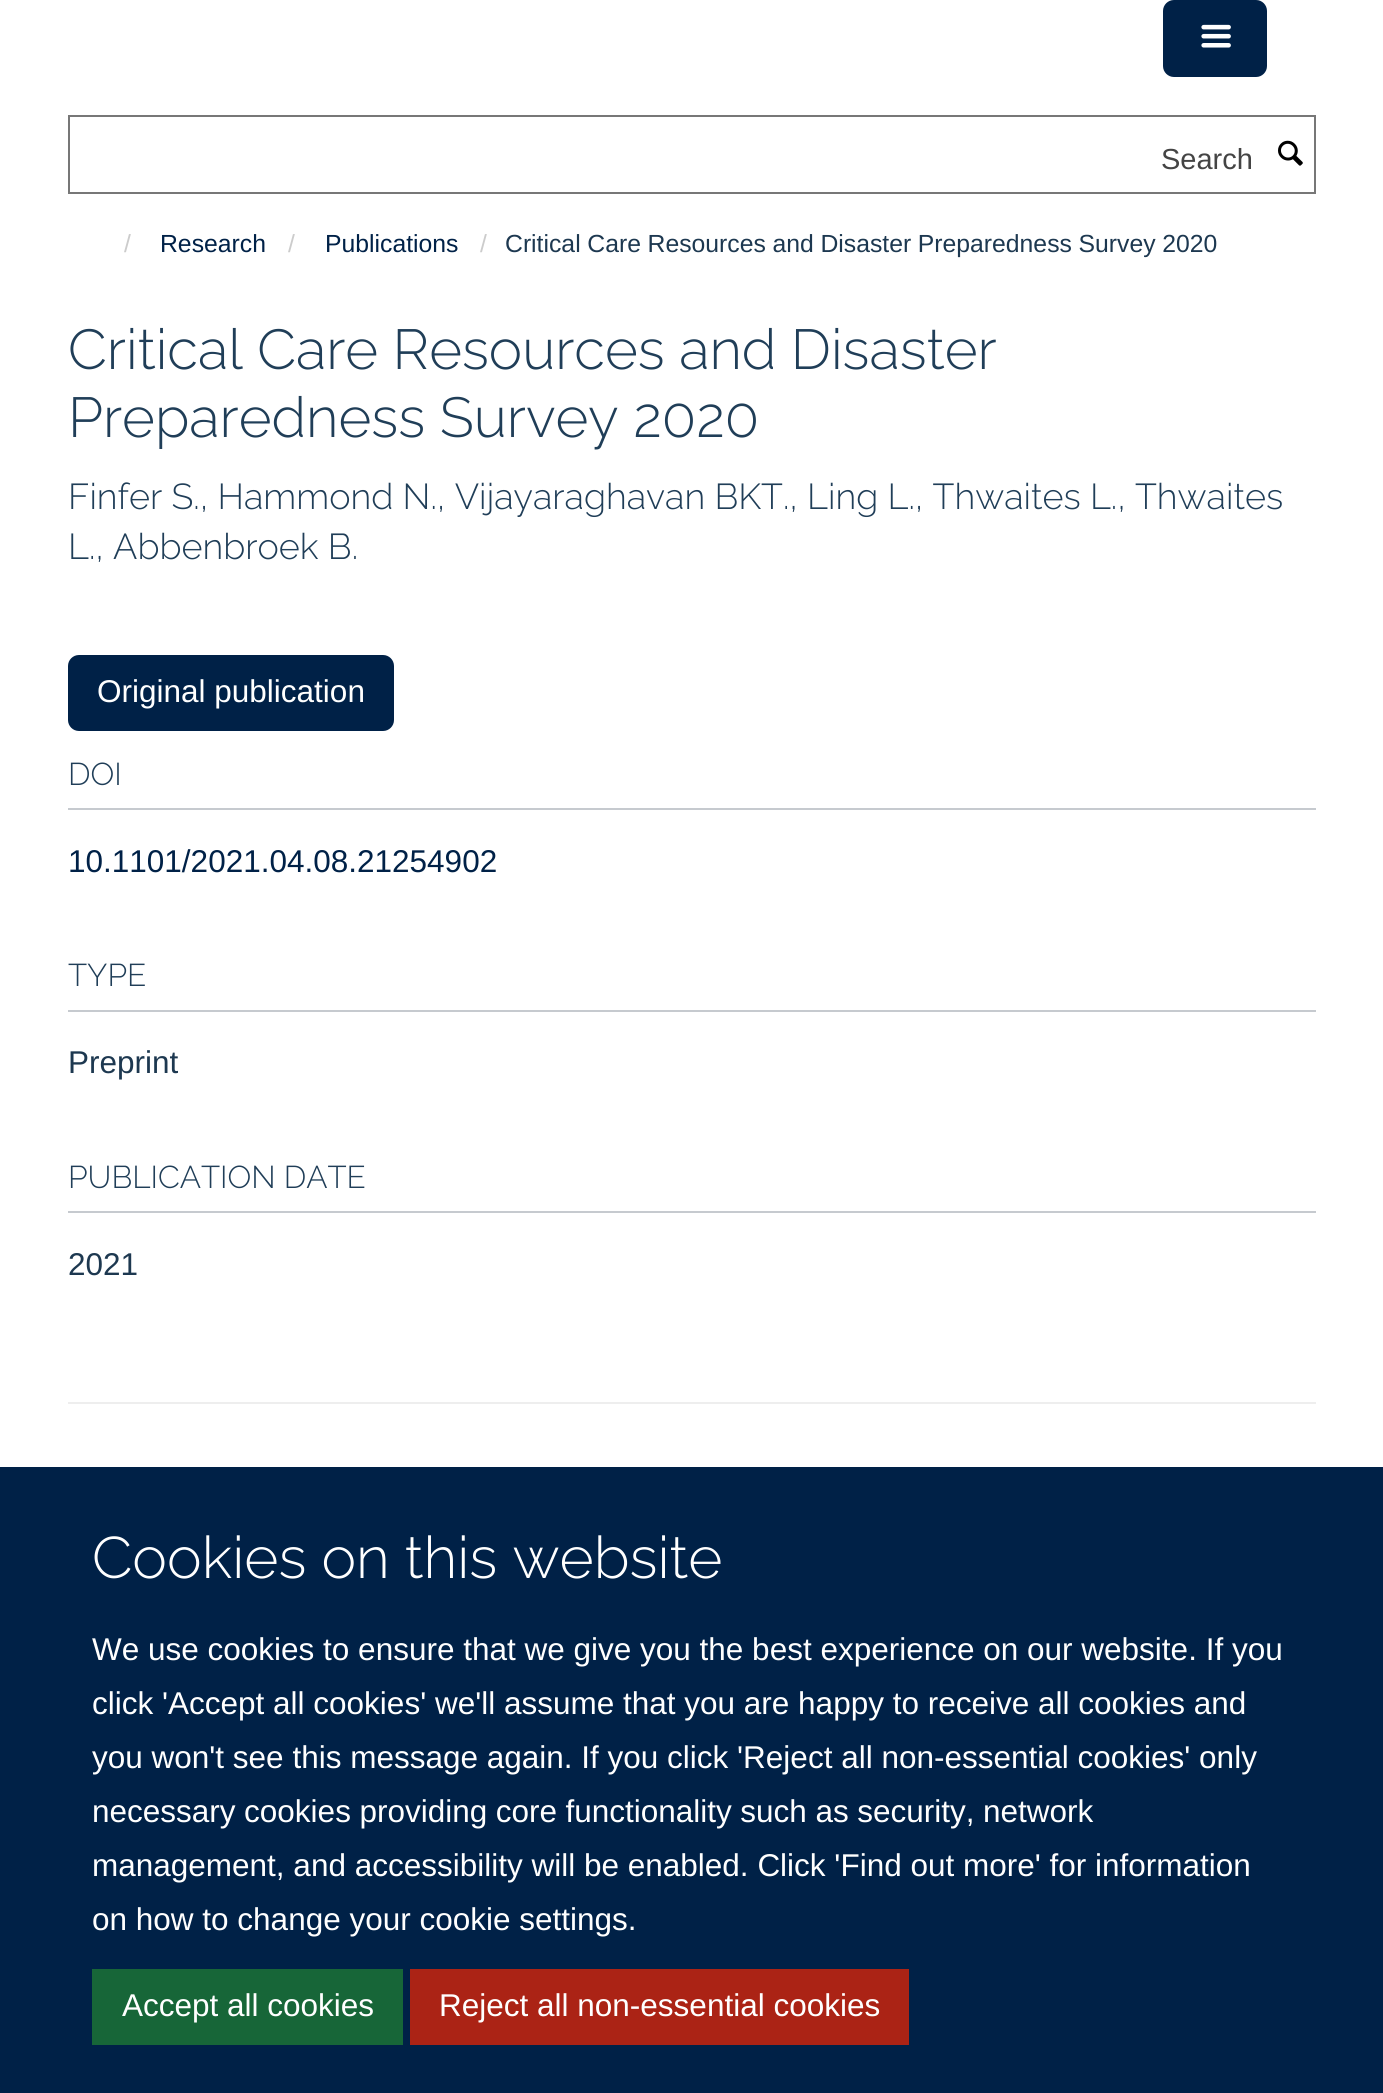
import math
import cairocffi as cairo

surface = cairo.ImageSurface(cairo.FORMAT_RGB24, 1383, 2093)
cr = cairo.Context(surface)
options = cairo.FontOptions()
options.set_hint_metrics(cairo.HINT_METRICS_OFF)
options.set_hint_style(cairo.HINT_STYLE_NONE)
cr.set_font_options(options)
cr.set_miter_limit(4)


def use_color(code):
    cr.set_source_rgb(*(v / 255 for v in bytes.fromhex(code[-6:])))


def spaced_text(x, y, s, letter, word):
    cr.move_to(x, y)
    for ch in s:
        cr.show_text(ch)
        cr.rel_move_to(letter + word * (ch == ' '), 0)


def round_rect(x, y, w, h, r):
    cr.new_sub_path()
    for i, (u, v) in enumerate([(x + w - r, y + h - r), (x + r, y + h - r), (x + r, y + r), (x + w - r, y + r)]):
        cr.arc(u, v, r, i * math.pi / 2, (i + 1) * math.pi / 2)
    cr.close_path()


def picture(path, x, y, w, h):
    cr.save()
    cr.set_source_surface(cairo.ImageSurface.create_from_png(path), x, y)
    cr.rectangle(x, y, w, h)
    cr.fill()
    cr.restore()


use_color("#ffffff")
cr.paint()
use_color("#002147")
round_rect(1164, 1, 102, 75, 10)
cr.fill_preserve()
cr.stroke()
picture("img1.png", 1201, 24, 30, 24)
cr.rectangle(69, 116, 1246, 77)
use_color("#777777")
cr.stroke()
cr.select_font_face("Liberation Sans")
cr.set_font_size(29)
use_color("#444444")
cr.move_to(1161, 169)
cr.show_text("Search")
picture("img2.png", 1278, 140, 25, 26)
cr.set_font_size(24.75)
use_color("#cccccc")
cr.move_to(124, 252)
cr.show_text("/")
use_color("#002147")
cr.move_to(160, 252)
cr.show_text("Research")
use_color("#cccccc")
cr.move_to(288, 252)
cr.show_text("/")
use_color("#002147")
cr.move_to(325, 252)
cr.show_text("Publications")
use_color("#cccccc")
cr.move_to(480, 252)
cr.show_text("/")
use_color("#1d3850")
spaced_text(505, 252, "Critical Care Resources and Disaster Preparedness Survey 2020", 0, -0.25)
cr.select_font_face("Raleway Light")
cr.set_font_size(56.25)
use_color("#203e58")
cr.move_to(68, 369)
cr.show_text("Critical Care Resources and Disaster")
cr.move_to(68, 437)
cr.show_text("Preparedness Survey 2020")
cr.set_font_size(36)
cr.move_to(68, 509)
cr.show_text("Finfer S., Hammond N., Vijayaraghavan BKT., Ling L., Thwaites L., Thwaites")
cr.move_to(68, 559)
cr.show_text("L., Abbenbroek B.")
use_color("#002147")
round_rect(69, 656, 324, 74, 10)
cr.fill_preserve()
cr.stroke()
cr.select_font_face("Liberation Sans")
cr.set_font_size(31.5)
use_color("#ffffff")
cr.move_to(97, 702)
cr.show_text("Original publication")
use_color("#c6cacf")
cr.rectangle(68, 808, 1248, 2)
cr.fill()
cr.select_font_face("Raleway Light")
use_color("#203e58")
cr.move_to(68, 785)
cr.show_text("DOI")
cr.select_font_face("Liberation Sans")
use_color("#002147")
cr.move_to(68, 872)
cr.show_text("10.1101/2021.04.08.21254902")
use_color("#c6cacf")
cr.rectangle(68, 1010, 1248, 2)
cr.fill()
cr.select_font_face("Raleway Light")
use_color("#203e58")
cr.move_to(68, 986)
cr.show_text("TYPE")
cr.select_font_face("Liberation Sans")
use_color("#1d3850")
cr.move_to(68, 1073)
cr.show_text("Preprint")
use_color("#c6cacf")
cr.rectangle(68, 1211, 1248, 2)
cr.fill()
cr.select_font_face("Raleway Light")
use_color("#203e58")
cr.move_to(68, 1188)
cr.show_text("PUBLICATION DATE")
cr.select_font_face("Liberation Sans")
use_color("#1d3850")
cr.move_to(68, 1275)
cr.show_text("2021")
use_color("#eeeeee")
cr.rectangle(68, 1402, 1248, 2)
cr.fill()
use_color("#002147")
cr.rectangle(0, 1467, 1383, 626)
cr.fill()
cr.select_font_face("Raleway Light")
cr.set_font_size(58.5)
use_color("#ffffff")
cr.move_to(92, 1578)
cr.show_text("Cookies on this website")
cr.select_font_face("Liberation Sans")
cr.set_font_size(31.5)
cr.move_to(92, 1660)
cr.show_text("We use cookies to ensure that we give you the best experience on our website. If you")
cr.move_to(92, 1714)
cr.show_text("click 'Accept all cookies' we'll assume that you are happy to receive all cookies and")
cr.move_to(92, 1768)
cr.show_text("you won't see this message again. If you click 'Reject all non-essential cookies' only")
spaced_text(92, 1822, "necessary cookies providing core functionality such as security, network", 0, -0.25)
cr.move_to(92, 1876)
cr.show_text("management, and accessibility will be enabled. Click 'Find out more' for information")
cr.move_to(92, 1930)
cr.show_text("on how to change your cookie settings.")
use_color("#176638")
cr.rectangle(92, 1969, 311, 76)
cr.fill()
use_color("#ffffff")
cr.move_to(122, 2016)
cr.show_text("Accept all cookies")
use_color("#ab2315")
cr.rectangle(410, 1969, 499, 76)
cr.fill()
use_color("#ffffff")
cr.move_to(439, 2016)
cr.show_text("Reject all non-essential cookies")
surface.write_to_png("result.png")
